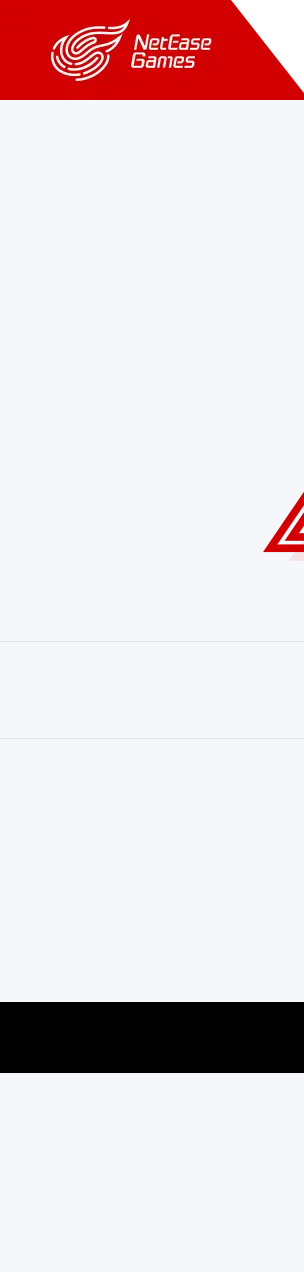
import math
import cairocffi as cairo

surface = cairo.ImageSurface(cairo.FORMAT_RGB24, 304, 1272)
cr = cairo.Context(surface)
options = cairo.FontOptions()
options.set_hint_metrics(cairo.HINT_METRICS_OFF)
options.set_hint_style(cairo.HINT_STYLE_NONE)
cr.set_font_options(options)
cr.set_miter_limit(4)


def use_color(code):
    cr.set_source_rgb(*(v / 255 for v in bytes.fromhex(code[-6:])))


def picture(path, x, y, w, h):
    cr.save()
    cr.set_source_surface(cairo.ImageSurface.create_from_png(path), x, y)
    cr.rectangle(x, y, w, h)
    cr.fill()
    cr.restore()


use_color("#f6f7fb")
cr.paint()
use_color("#ffffff")
cr.rectangle(231, 0, 73, 93)
cr.fill()
picture("img1.png", 0, 0, 304, 100)
picture("img2.png", 263, 491, 41, 70)
use_color("#e4e5e8")
cr.rectangle(0, 641, 304, 1)
cr.fill()
cr.rectangle(0, 738, 304, 1)
cr.fill()
use_color("#000000")
cr.rectangle(0, 1002, 304, 71)
cr.fill()
surface.write_to_png("result.png")
